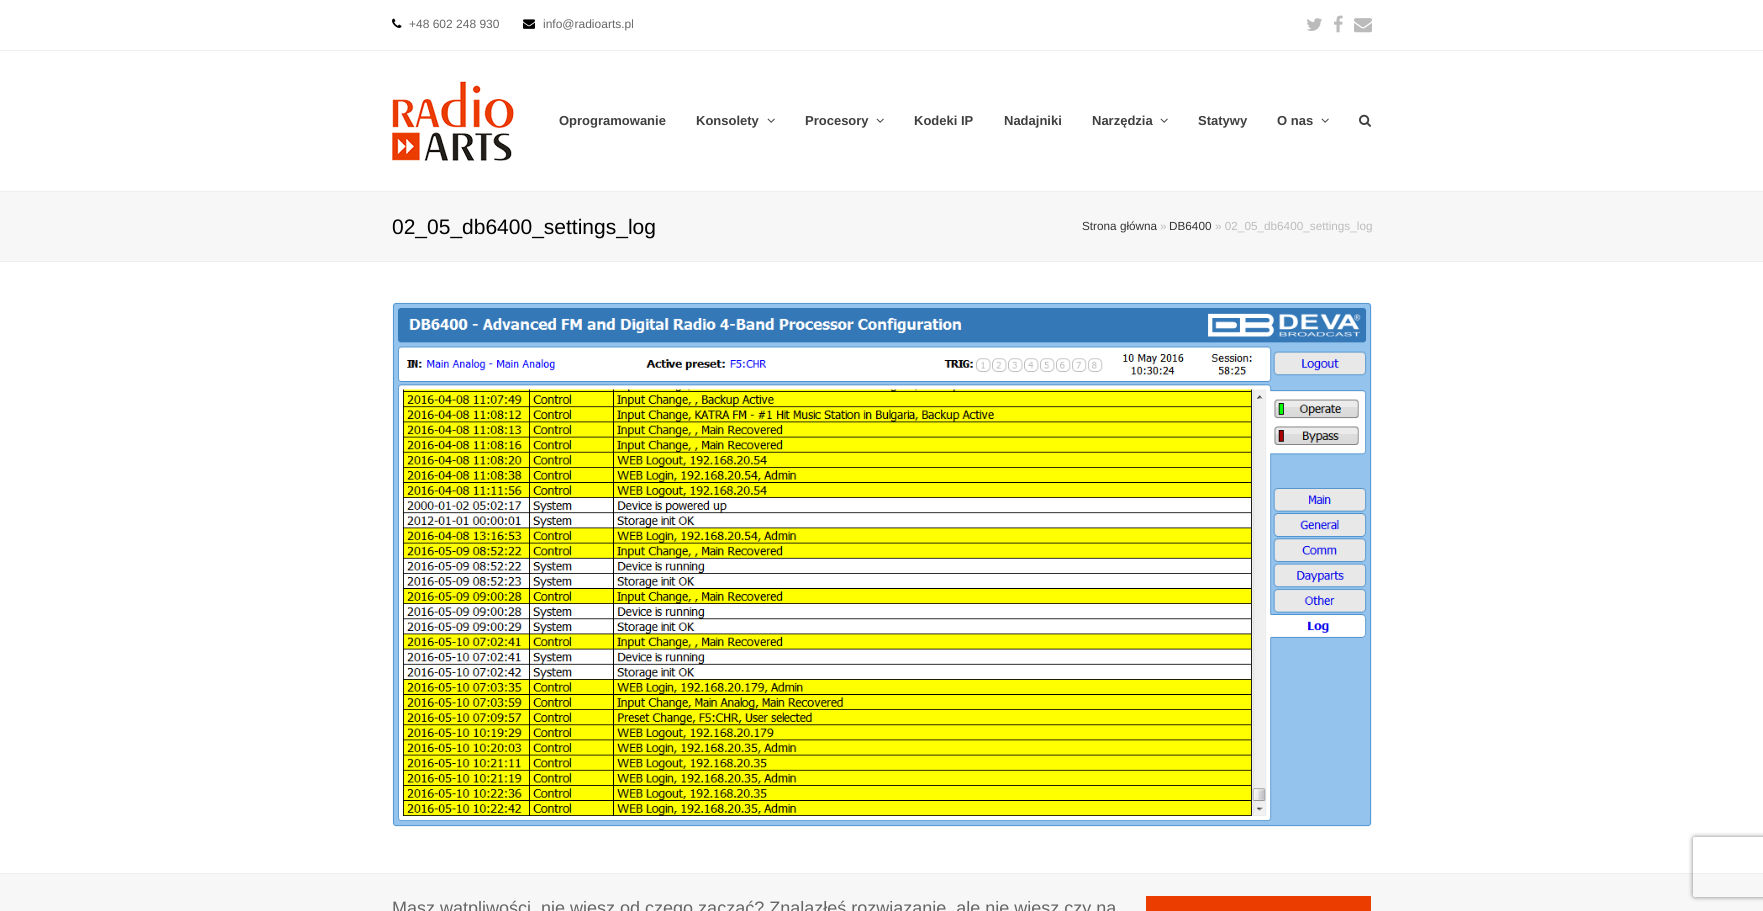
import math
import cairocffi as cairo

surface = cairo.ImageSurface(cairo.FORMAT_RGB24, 1763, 911)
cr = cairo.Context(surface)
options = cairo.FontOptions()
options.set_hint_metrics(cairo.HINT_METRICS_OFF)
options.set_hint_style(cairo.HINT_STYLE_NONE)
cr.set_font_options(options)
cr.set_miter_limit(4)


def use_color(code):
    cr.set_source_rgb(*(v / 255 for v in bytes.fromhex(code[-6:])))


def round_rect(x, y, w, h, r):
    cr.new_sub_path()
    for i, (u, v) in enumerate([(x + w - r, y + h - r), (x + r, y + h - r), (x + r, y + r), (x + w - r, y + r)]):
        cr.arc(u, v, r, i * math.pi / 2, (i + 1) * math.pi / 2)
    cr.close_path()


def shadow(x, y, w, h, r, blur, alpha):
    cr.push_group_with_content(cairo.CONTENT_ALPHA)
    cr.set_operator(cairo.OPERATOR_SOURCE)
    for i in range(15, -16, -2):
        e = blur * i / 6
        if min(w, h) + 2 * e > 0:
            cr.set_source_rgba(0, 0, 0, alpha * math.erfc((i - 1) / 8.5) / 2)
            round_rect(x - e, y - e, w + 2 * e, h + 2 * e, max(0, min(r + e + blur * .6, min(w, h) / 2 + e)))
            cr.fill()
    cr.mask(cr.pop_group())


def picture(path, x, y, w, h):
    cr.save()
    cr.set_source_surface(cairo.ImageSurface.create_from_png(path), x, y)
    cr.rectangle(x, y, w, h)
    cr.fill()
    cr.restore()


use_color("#ffffff")
cr.paint()
use_color("#eeeeee")
cr.rectangle(0, 50, 1763, 1)
cr.fill()
picture("img1.png", 392, 18, 10, 10)
cr.select_font_face("Liberation Sans")
cr.set_font_size(12)
use_color("#666666")
cr.move_to(409, 28)
cr.show_text("+48 602 248 930")
picture("img2.png", 523, 19, 12, 10)
cr.move_to(543, 28)
cr.show_text("info@radioarts.pl")
picture("img3.png", 1306, 18, 16, 13)
picture("img4.png", 1334, 15, 9, 18)
picture("img5.png", 1354, 18, 18, 15)
picture("img6.png", 392, 81, 122, 80)
cr.select_font_face("Liberation Sans", cairo.FONT_SLANT_NORMAL, cairo.FONT_WEIGHT_BOLD)
cr.set_font_size(13)
use_color("#3f3f3f")
cr.move_to(559, 125)
cr.show_text("Oprogramowanie")
cr.move_to(696, 125)
cr.show_text("Konsolety")
picture("img7.png", 767, 118, 8, 5)
cr.move_to(805, 125)
cr.show_text("Procesory")
picture("img7.png", 876, 118, 8, 5)
cr.move_to(914, 125)
cr.show_text("Kodeki IP")
cr.move_to(1004, 125)
cr.show_text("Nadajniki")
cr.move_to(1092, 125)
cr.show_text("Narzędzia")
picture("img7.png", 1160, 118, 8, 5)
cr.move_to(1198, 125)
cr.show_text("Statywy")
cr.move_to(1277, 125)
cr.show_text("O nas")
picture("img7.png", 1321, 118, 8, 5)
picture("img8.png", 1359, 114, 12, 13)
use_color("#f7f7f7")
cr.rectangle(0, 192, 1763, 69)
cr.fill()
use_color("#eeeeee")
cr.rectangle(0, 191, 1763, 1)
cr.fill()
cr.rectangle(0, 261, 1763, 1)
cr.fill()
cr.select_font_face("Liberation Sans")
cr.set_font_size(21)
use_color("#000000")
cr.move_to(392, 234)
cr.show_text("02_05_db6400_settings_log")
cr.set_font_size(11.75)
use_color("#333333")
cr.move_to(1082, 230)
cr.show_text("Strona główna")
use_color("#bcbcbc")
cr.move_to(1160, 230)
cr.show_text("»")
use_color("#333333")
cr.move_to(1169, 230)
cr.show_text("DB6400")
use_color("#bcbcbc")
cr.move_to(1215, 230)
cr.show_text("» 02_05_db6400_settings_log")
picture("img9.png", 392, 302, 980, 525)
use_color("#f7f7f7")
cr.rectangle(0, 874, 1763, 37)
cr.fill()
use_color("#eeeeee")
cr.rectangle(0, 873, 1763, 1)
cr.fill()
cr.set_font_size(18)
use_color("#666666")
cr.move_to(392, 914)
cr.show_text("Masz wątpliwości, nie wiesz od czego zacząć? Znalazłeś rozwiązanie, ale nie wiesz czy na")
use_color("#eb3d00")
cr.rectangle(1146, 896, 225, 15)
cr.fill()
cr.save()
cr.set_fill_rule(cairo.FILL_RULE_EVEN_ODD)
cr.new_path()
cr.move_to(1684, 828)
cr.line_to(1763, 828)
cr.line_to(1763, 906)
cr.line_to(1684, 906)
cr.close_path()
cr.move_to(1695, 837)
cr.line_to(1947, 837)
cr.curve_to(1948, 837, 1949, 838, 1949, 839)
cr.line_to(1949, 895)
cr.curve_to(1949, 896, 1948, 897, 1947, 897)
cr.line_to(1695, 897)
cr.curve_to(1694, 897, 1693, 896, 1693, 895)
cr.line_to(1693, 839)
cr.curve_to(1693, 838, 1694, 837, 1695, 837)
cr.close_path()
cr.clip()
use_color("#808080")
shadow(1693, 837, 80, 60, 2, 2.5, 1)
cr.restore()
surface.write_to_png("result.png")
